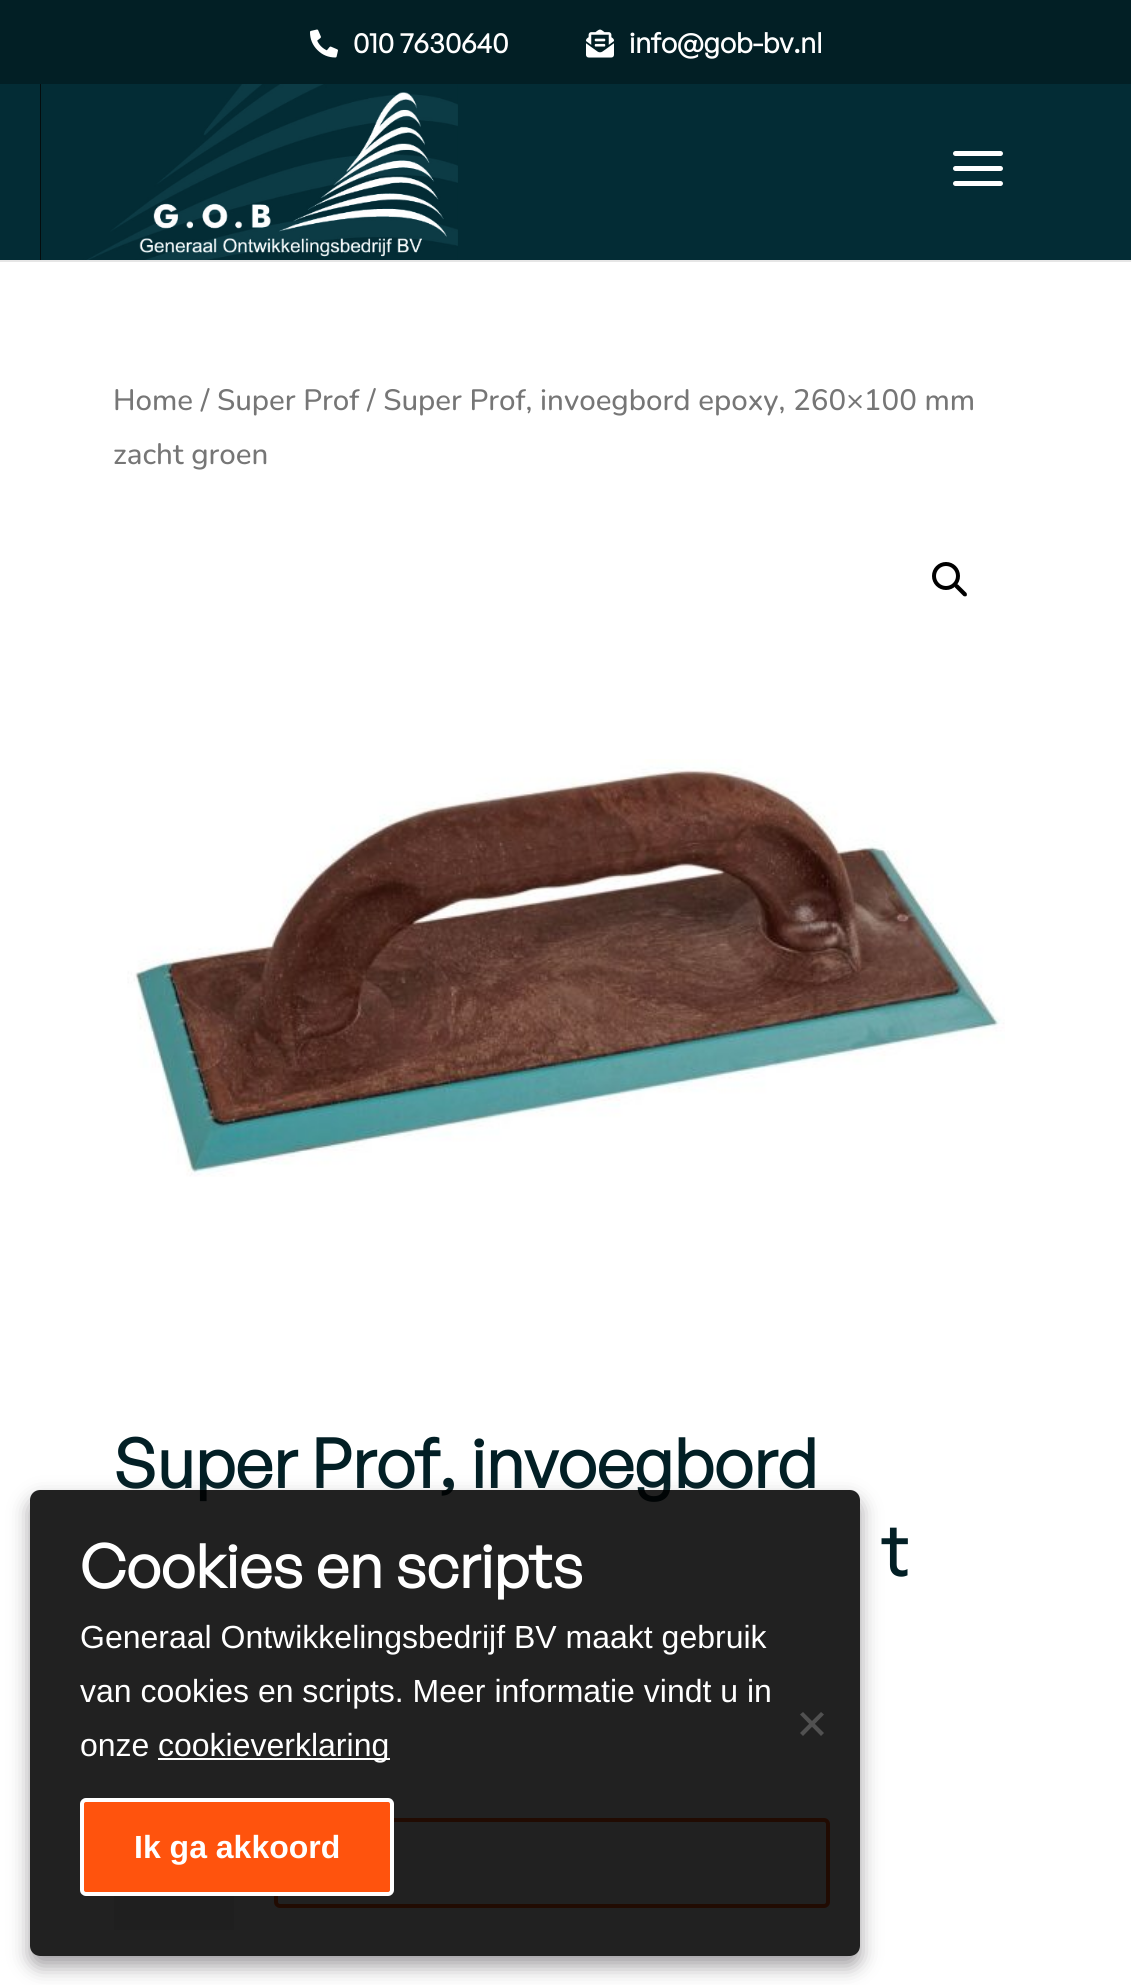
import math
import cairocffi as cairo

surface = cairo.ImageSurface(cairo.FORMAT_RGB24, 1131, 1985)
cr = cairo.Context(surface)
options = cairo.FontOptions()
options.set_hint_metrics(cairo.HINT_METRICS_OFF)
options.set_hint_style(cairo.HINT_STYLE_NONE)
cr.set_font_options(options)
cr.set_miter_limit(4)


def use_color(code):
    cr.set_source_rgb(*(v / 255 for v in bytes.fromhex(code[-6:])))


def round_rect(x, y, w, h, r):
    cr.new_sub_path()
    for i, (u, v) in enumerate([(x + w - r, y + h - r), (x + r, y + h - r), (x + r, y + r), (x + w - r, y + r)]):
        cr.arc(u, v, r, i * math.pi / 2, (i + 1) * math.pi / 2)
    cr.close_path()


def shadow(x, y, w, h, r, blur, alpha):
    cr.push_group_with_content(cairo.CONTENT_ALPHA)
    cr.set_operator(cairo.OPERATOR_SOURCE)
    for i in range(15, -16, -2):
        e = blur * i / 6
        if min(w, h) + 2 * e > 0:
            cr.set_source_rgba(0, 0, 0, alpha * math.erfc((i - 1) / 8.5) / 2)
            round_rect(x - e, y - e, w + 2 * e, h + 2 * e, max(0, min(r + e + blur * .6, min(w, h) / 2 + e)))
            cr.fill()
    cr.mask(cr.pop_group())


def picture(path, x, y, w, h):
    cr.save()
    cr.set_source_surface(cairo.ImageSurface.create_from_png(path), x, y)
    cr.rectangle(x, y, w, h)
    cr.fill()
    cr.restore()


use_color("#ffffff")
cr.paint()
use_color("#021f25")
cr.rectangle(0, 0, 1131, 84)
cr.fill()
picture("img1.png", 310, 29, 28, 29)
cr.select_font_face("General Sans", cairo.FONT_SLANT_NORMAL, cairo.FONT_WEIGHT_BOLD)
cr.set_font_size(28)
use_color("#ffffff")
cr.move_to(353, 53)
cr.show_text("010 7630640")
picture("img2.png", 586, 29, 28, 29)
cr.move_to(629, 53)
cr.show_text("info@gob-bv.nl")
use_color("#e6e6e6")
cr.rectangle(0, 260, 1131, 2)
cr.fill()
use_color("#032c35")
cr.rectangle(0, 84, 1131, 176)
cr.fill()
picture("img3.png", 40, 84, 418, 176)
picture("img4.png", 953, 151, 50, 35)
cr.select_font_face("Nunito Medium")
cr.set_font_size(29.45)
use_color("#767676")
cr.move_to(113, 410)
cr.show_text("Home / Super Prof / Super Prof, invoegbord epoxy, 260×100 mm")
cr.move_to(113, 464)
cr.show_text("zacht groen")
cr.new_path()
cr.arc(946, 576, 12, 0, 2 * math.pi)
use_color("#000000")
cr.set_line_width(4)
cr.stroke()
cr.new_path()
cr.move_to(955, 584.5)
cr.curve_to(956, 584, 957, 584, 958, 584.5)
cr.line_to(966.5, 593)
cr.curve_to(967, 594, 967, 595, 966.5, 596)
cr.curve_to(965.5, 596.5, 964.5, 596.5, 963.5, 596)
cr.line_to(955, 587.5)
cr.curve_to(954.5, 586.5, 954.5, 585.5, 955, 584.5)
cr.close_path()
cr.fill()
picture("img5.png", 127, 759, 878, 418)
cr.select_font_face("General Sans", cairo.FONT_SLANT_NORMAL, cairo.FONT_WEIGHT_BOLD)
cr.set_font_size(68)
use_color("#021f25")
cr.move_to(113, 1488)
cr.show_text("Super Prof, invoegbord")
cr.move_to(882, 1576)
cr.show_text("t")
round_rect(276, 1820, 552, 86, 4)
use_color("#ff530d")
cr.stroke()
use_color("#eeeeee")
cr.rectangle(114, 1896, 120, 34)
cr.fill()
cr.save()
cr.set_fill_rule(cairo.FILL_RULE_EVEN_ODD)
cr.new_path()
cr.move_to(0, 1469)
cr.line_to(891, 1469)
cr.line_to(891, 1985)
cr.line_to(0, 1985)
cr.close_path()
cr.move_to(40, 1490)
cr.line_to(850, 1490)
cr.curve_to(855.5, 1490, 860, 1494.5, 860, 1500)
cr.line_to(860, 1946)
cr.curve_to(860, 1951.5, 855.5, 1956, 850, 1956)
cr.line_to(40, 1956)
cr.curve_to(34.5, 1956, 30, 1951.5, 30, 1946)
cr.line_to(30, 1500)
cr.curve_to(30, 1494.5, 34.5, 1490, 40, 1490)
cr.close_path()
cr.clip()
use_color("#6b676d")
shadow(30, 1500, 830, 466, 10, 10, 0.65)
cr.restore()
cr.set_source_rgba(0, 0, 0, 0.87)
round_rect(30, 1490, 830, 466, 10)
cr.fill()
cr.set_font_size(60)
use_color("#ffffff")
cr.move_to(80, 1588)
cr.show_text("Cookies en scripts")
cr.select_font_face("Liberation Sans")
cr.set_font_size(32)
cr.move_to(80, 1648)
cr.show_text("Generaal Ontwikkelingsbedrijf BV maakt gebruik")
cr.move_to(80, 1702)
cr.show_text("van cookies en scripts. Meer informatie vindt u in")
cr.move_to(80, 1756)
cr.show_text("onze")
cr.rectangle(158, 1758, 232, 2)
cr.fill()
cr.move_to(158, 1756)
cr.show_text("cookieverklaring")
use_color("#515151")
cr.new_path()
cr.move_to(821, 1712)
cr.line_to(824, 1714.5)
cr.line_to(803, 1736)
cr.line_to(800, 1733)
cr.close_path()
cr.fill()
cr.new_path()
cr.move_to(800, 1714.5)
cr.line_to(803, 1712)
cr.line_to(824, 1733)
cr.line_to(821, 1736)
cr.close_path()
cr.fill()
use_color("#ff530d")
round_rect(82, 1800, 310, 94, 4)
cr.fill_preserve()
use_color("#ffffff")
cr.stroke()
cr.select_font_face("Liberation Sans", cairo.FONT_SLANT_NORMAL, cairo.FONT_WEIGHT_BOLD)
cr.move_to(134, 1858)
cr.show_text("Ik ga akkoord")
surface.write_to_png("result.png")
